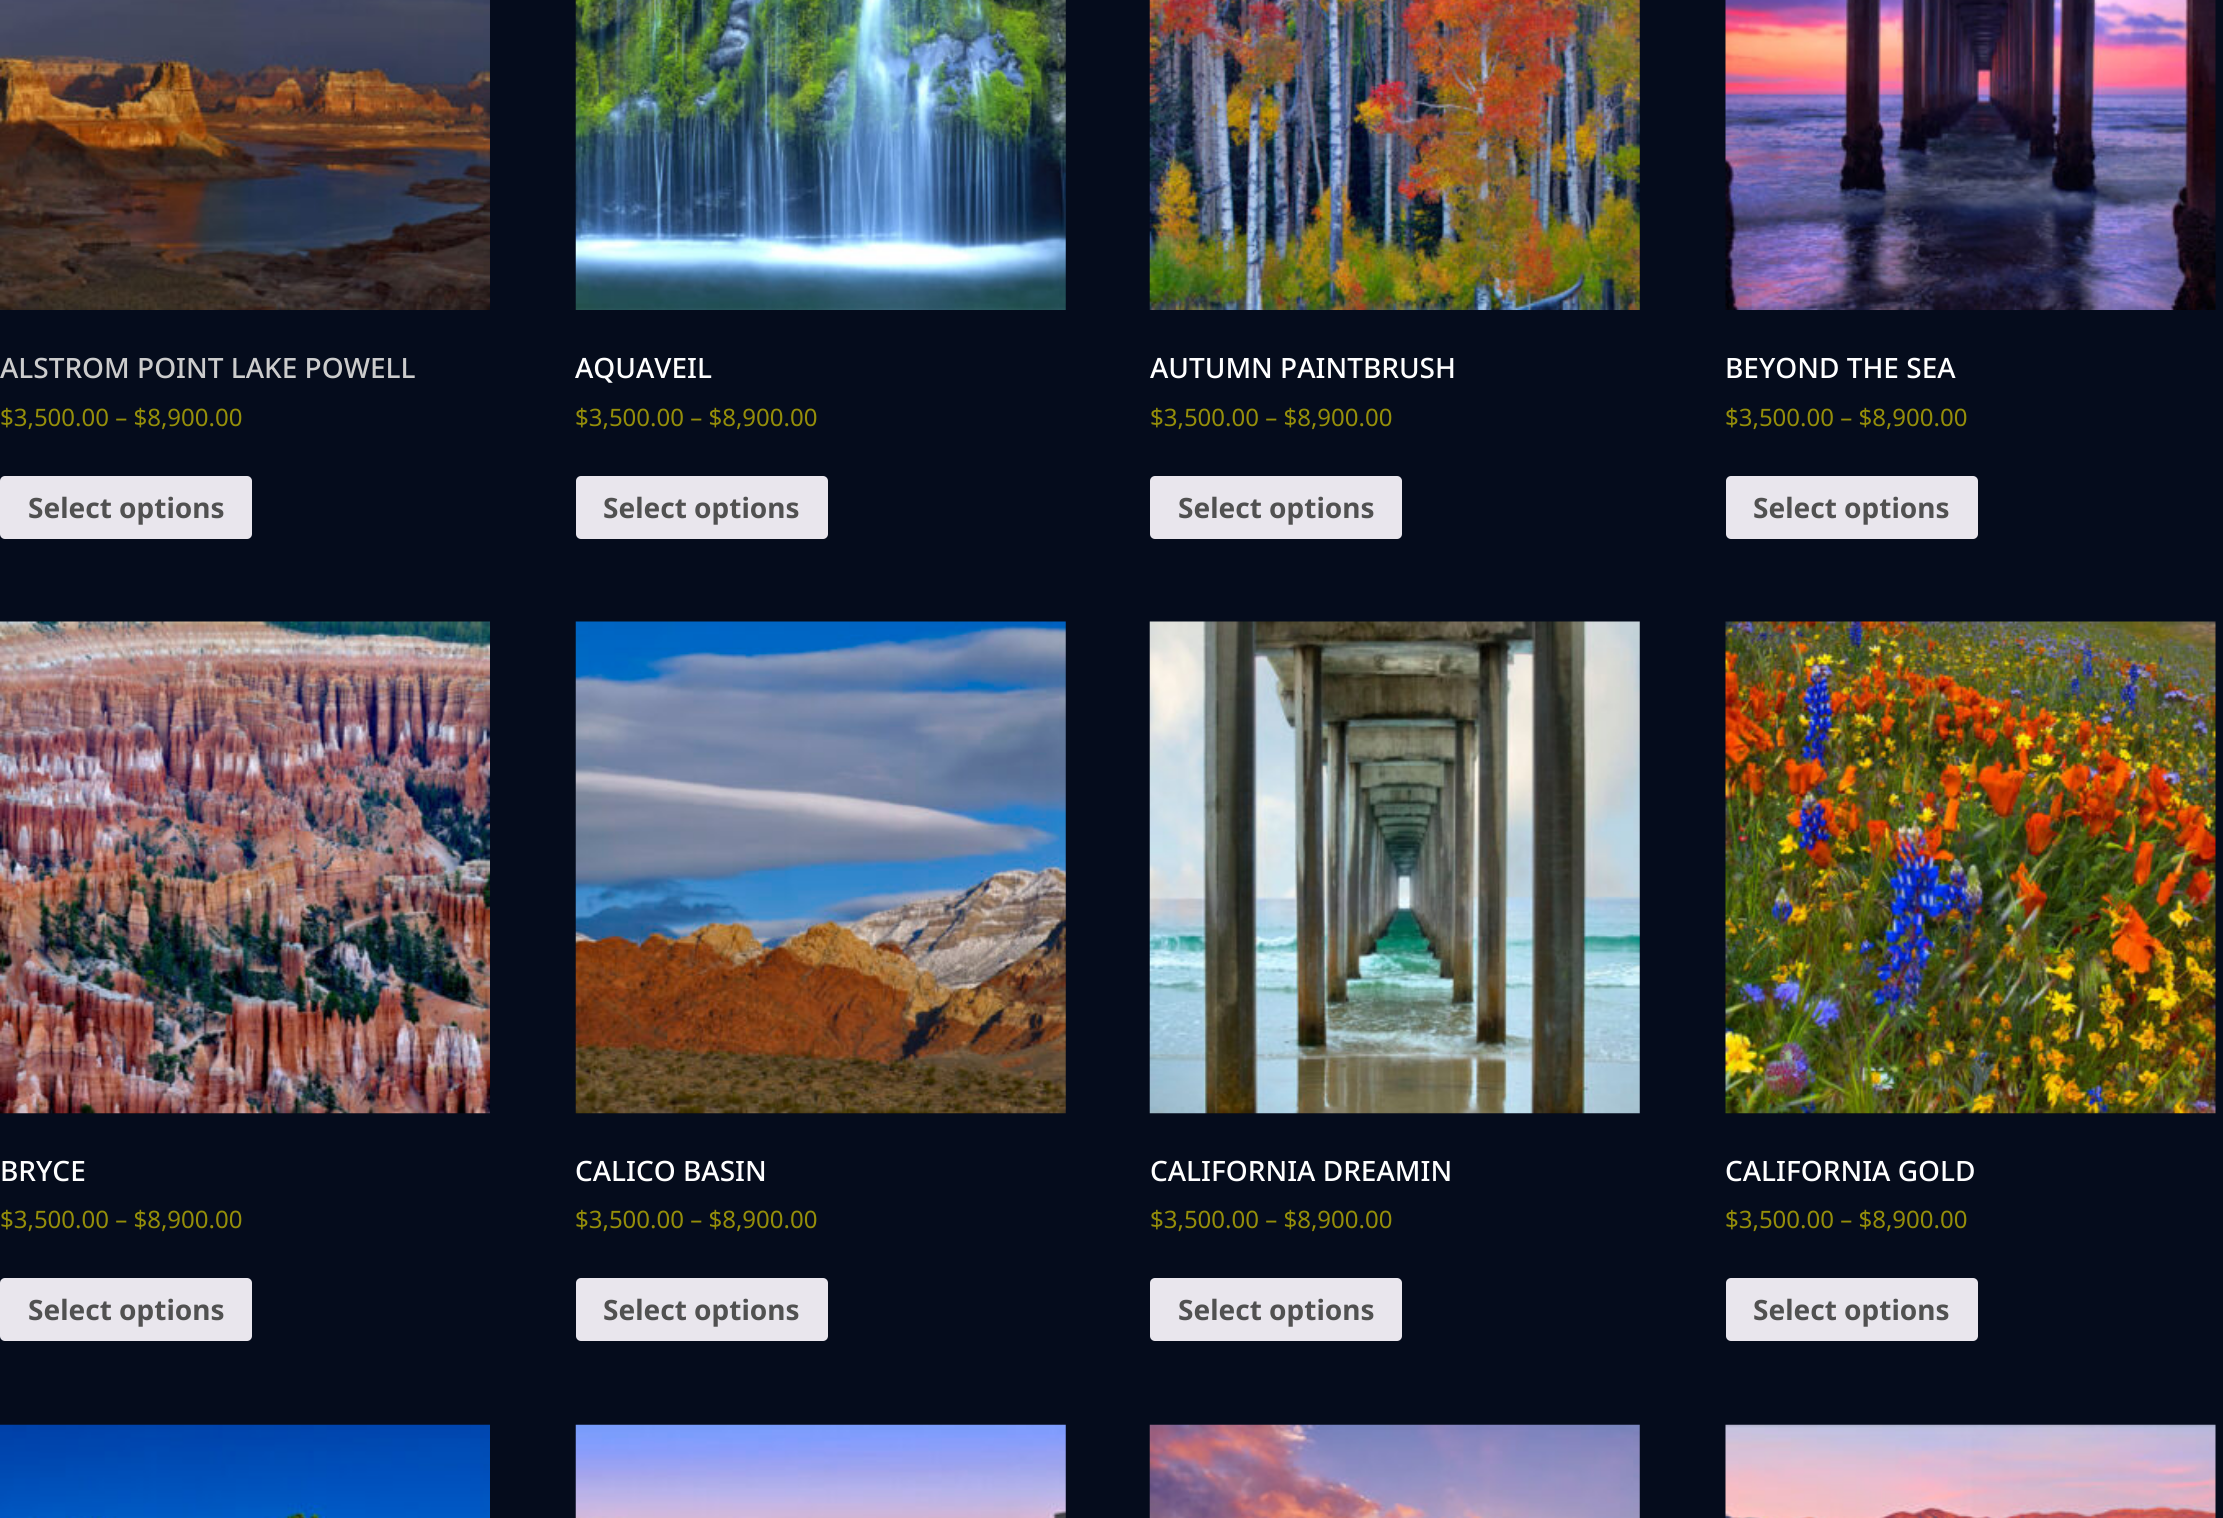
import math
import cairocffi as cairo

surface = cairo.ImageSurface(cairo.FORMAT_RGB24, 2223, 1518)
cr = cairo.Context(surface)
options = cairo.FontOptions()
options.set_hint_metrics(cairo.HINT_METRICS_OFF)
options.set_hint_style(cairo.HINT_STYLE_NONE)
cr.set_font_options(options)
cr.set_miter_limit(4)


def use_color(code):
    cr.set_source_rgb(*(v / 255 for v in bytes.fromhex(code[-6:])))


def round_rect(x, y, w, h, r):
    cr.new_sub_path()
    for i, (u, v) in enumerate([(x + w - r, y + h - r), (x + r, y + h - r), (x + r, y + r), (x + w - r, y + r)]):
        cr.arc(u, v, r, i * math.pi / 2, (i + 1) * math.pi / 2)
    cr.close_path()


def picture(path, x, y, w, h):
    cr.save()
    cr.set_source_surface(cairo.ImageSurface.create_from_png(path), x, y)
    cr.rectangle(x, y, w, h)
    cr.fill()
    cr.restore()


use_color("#050c1c")
cr.paint()
picture("img1.png", 0, 0, 490, 310)
cr.select_font_face("Noto Sans Medium")
cr.set_font_size(28)
use_color("#cccccc")
cr.move_to(0, 378)
cr.show_text("ALSTROM POINT LAKE POWELL")
cr.select_font_face("Noto Sans")
cr.set_font_size(24)
use_color("#958e09")
cr.move_to(0, 426)
cr.show_text("$3,500.00 – $8,900.00")
use_color("#e9e6ed")
round_rect(0, 476, 252, 63, 5)
cr.fill()
cr.select_font_face("Noto Sans", cairo.FONT_SLANT_NORMAL, cairo.FONT_WEIGHT_BOLD)
cr.set_font_size(28)
use_color("#515151")
cr.move_to(28, 518)
cr.show_text("Select options")
picture("img2.png", 575, 0, 491, 310)
cr.select_font_face("Noto Sans Medium")
use_color("#ffffff")
cr.move_to(575, 378)
cr.show_text("AQUAVEIL")
cr.select_font_face("Noto Sans")
cr.set_font_size(24)
use_color("#958e09")
cr.move_to(575, 426)
cr.show_text("$3,500.00 – $8,900.00")
use_color("#e9e6ed")
round_rect(576, 476, 252, 63, 5)
cr.fill()
cr.select_font_face("Noto Sans", cairo.FONT_SLANT_NORMAL, cairo.FONT_WEIGHT_BOLD)
cr.set_font_size(28)
use_color("#515151")
cr.move_to(603, 518)
cr.show_text("Select options")
picture("img3.png", 1149, 0, 491, 310)
cr.select_font_face("Noto Sans Medium")
use_color("#ffffff")
cr.move_to(1150, 378)
cr.show_text("AUTUMN PAINTBRUSH")
cr.select_font_face("Noto Sans")
cr.set_font_size(24)
use_color("#958e09")
cr.move_to(1150, 426)
cr.show_text("$3,500.00 – $8,900.00")
use_color("#e9e6ed")
round_rect(1150, 476, 252, 63, 5)
cr.fill()
cr.select_font_face("Noto Sans", cairo.FONT_SLANT_NORMAL, cairo.FONT_WEIGHT_BOLD)
cr.set_font_size(28)
use_color("#515151")
cr.move_to(1178, 518)
cr.show_text("Select options")
picture("img4.png", 1725, 0, 491, 310)
cr.select_font_face("Noto Sans Medium")
use_color("#ffffff")
cr.move_to(1725, 378)
cr.show_text("BEYOND THE SEA")
cr.select_font_face("Noto Sans")
cr.set_font_size(24)
use_color("#958e09")
cr.move_to(1725, 426)
cr.show_text("$3,500.00 – $8,900.00")
use_color("#e9e6ed")
round_rect(1726, 476, 252, 63, 5)
cr.fill()
cr.select_font_face("Noto Sans", cairo.FONT_SLANT_NORMAL, cairo.FONT_WEIGHT_BOLD)
cr.set_font_size(28)
use_color("#515151")
cr.move_to(1753, 518)
cr.show_text("Select options")
picture("img5.png", 0, 621, 490, 493)
cr.select_font_face("Noto Sans Medium")
use_color("#ffffff")
cr.move_to(0, 1181)
cr.show_text("BRYCE")
cr.select_font_face("Noto Sans")
cr.set_font_size(24)
use_color("#958e09")
cr.move_to(0, 1228)
cr.show_text("$3,500.00 – $8,900.00")
use_color("#e9e6ed")
round_rect(0, 1278, 252, 63, 5)
cr.fill()
cr.select_font_face("Noto Sans", cairo.FONT_SLANT_NORMAL, cairo.FONT_WEIGHT_BOLD)
cr.set_font_size(28)
use_color("#515151")
cr.move_to(28, 1320)
cr.show_text("Select options")
picture("img6.png", 575, 621, 491, 493)
cr.select_font_face("Noto Sans Medium")
use_color("#ffffff")
cr.move_to(575, 1181)
cr.show_text("CALICO BASIN")
cr.select_font_face("Noto Sans")
cr.set_font_size(24)
use_color("#958e09")
cr.move_to(575, 1228)
cr.show_text("$3,500.00 – $8,900.00")
use_color("#e9e6ed")
round_rect(576, 1278, 252, 63, 5)
cr.fill()
cr.select_font_face("Noto Sans", cairo.FONT_SLANT_NORMAL, cairo.FONT_WEIGHT_BOLD)
cr.set_font_size(28)
use_color("#515151")
cr.move_to(603, 1320)
cr.show_text("Select options")
picture("img7.png", 1149, 621, 491, 493)
cr.select_font_face("Noto Sans Medium")
use_color("#ffffff")
cr.move_to(1150, 1181)
cr.show_text("CALIFORNIA DREAMIN")
cr.select_font_face("Noto Sans")
cr.set_font_size(24)
use_color("#958e09")
cr.move_to(1150, 1228)
cr.show_text("$3,500.00 – $8,900.00")
use_color("#e9e6ed")
round_rect(1150, 1278, 252, 63, 5)
cr.fill()
cr.select_font_face("Noto Sans", cairo.FONT_SLANT_NORMAL, cairo.FONT_WEIGHT_BOLD)
cr.set_font_size(28)
use_color("#515151")
cr.move_to(1178, 1320)
cr.show_text("Select options")
picture("img8.png", 1725, 621, 491, 493)
cr.select_font_face("Noto Sans Medium")
use_color("#ffffff")
cr.move_to(1725, 1181)
cr.show_text("CALIFORNIA GOLD")
cr.select_font_face("Noto Sans")
cr.set_font_size(24)
use_color("#958e09")
cr.move_to(1725, 1228)
cr.show_text("$3,500.00 – $8,900.00")
use_color("#e9e6ed")
round_rect(1726, 1278, 252, 63, 5)
cr.fill()
cr.select_font_face("Noto Sans", cairo.FONT_SLANT_NORMAL, cairo.FONT_WEIGHT_BOLD)
cr.set_font_size(28)
use_color("#515151")
cr.move_to(1753, 1320)
cr.show_text("Select options")
picture("img9.png", 0, 1424, 490, 94)
picture("img10.png", 575, 1424, 491, 94)
picture("img11.png", 1149, 1424, 491, 94)
picture("img12.png", 1725, 1424, 491, 94)
surface.write_to_png("result.png")
